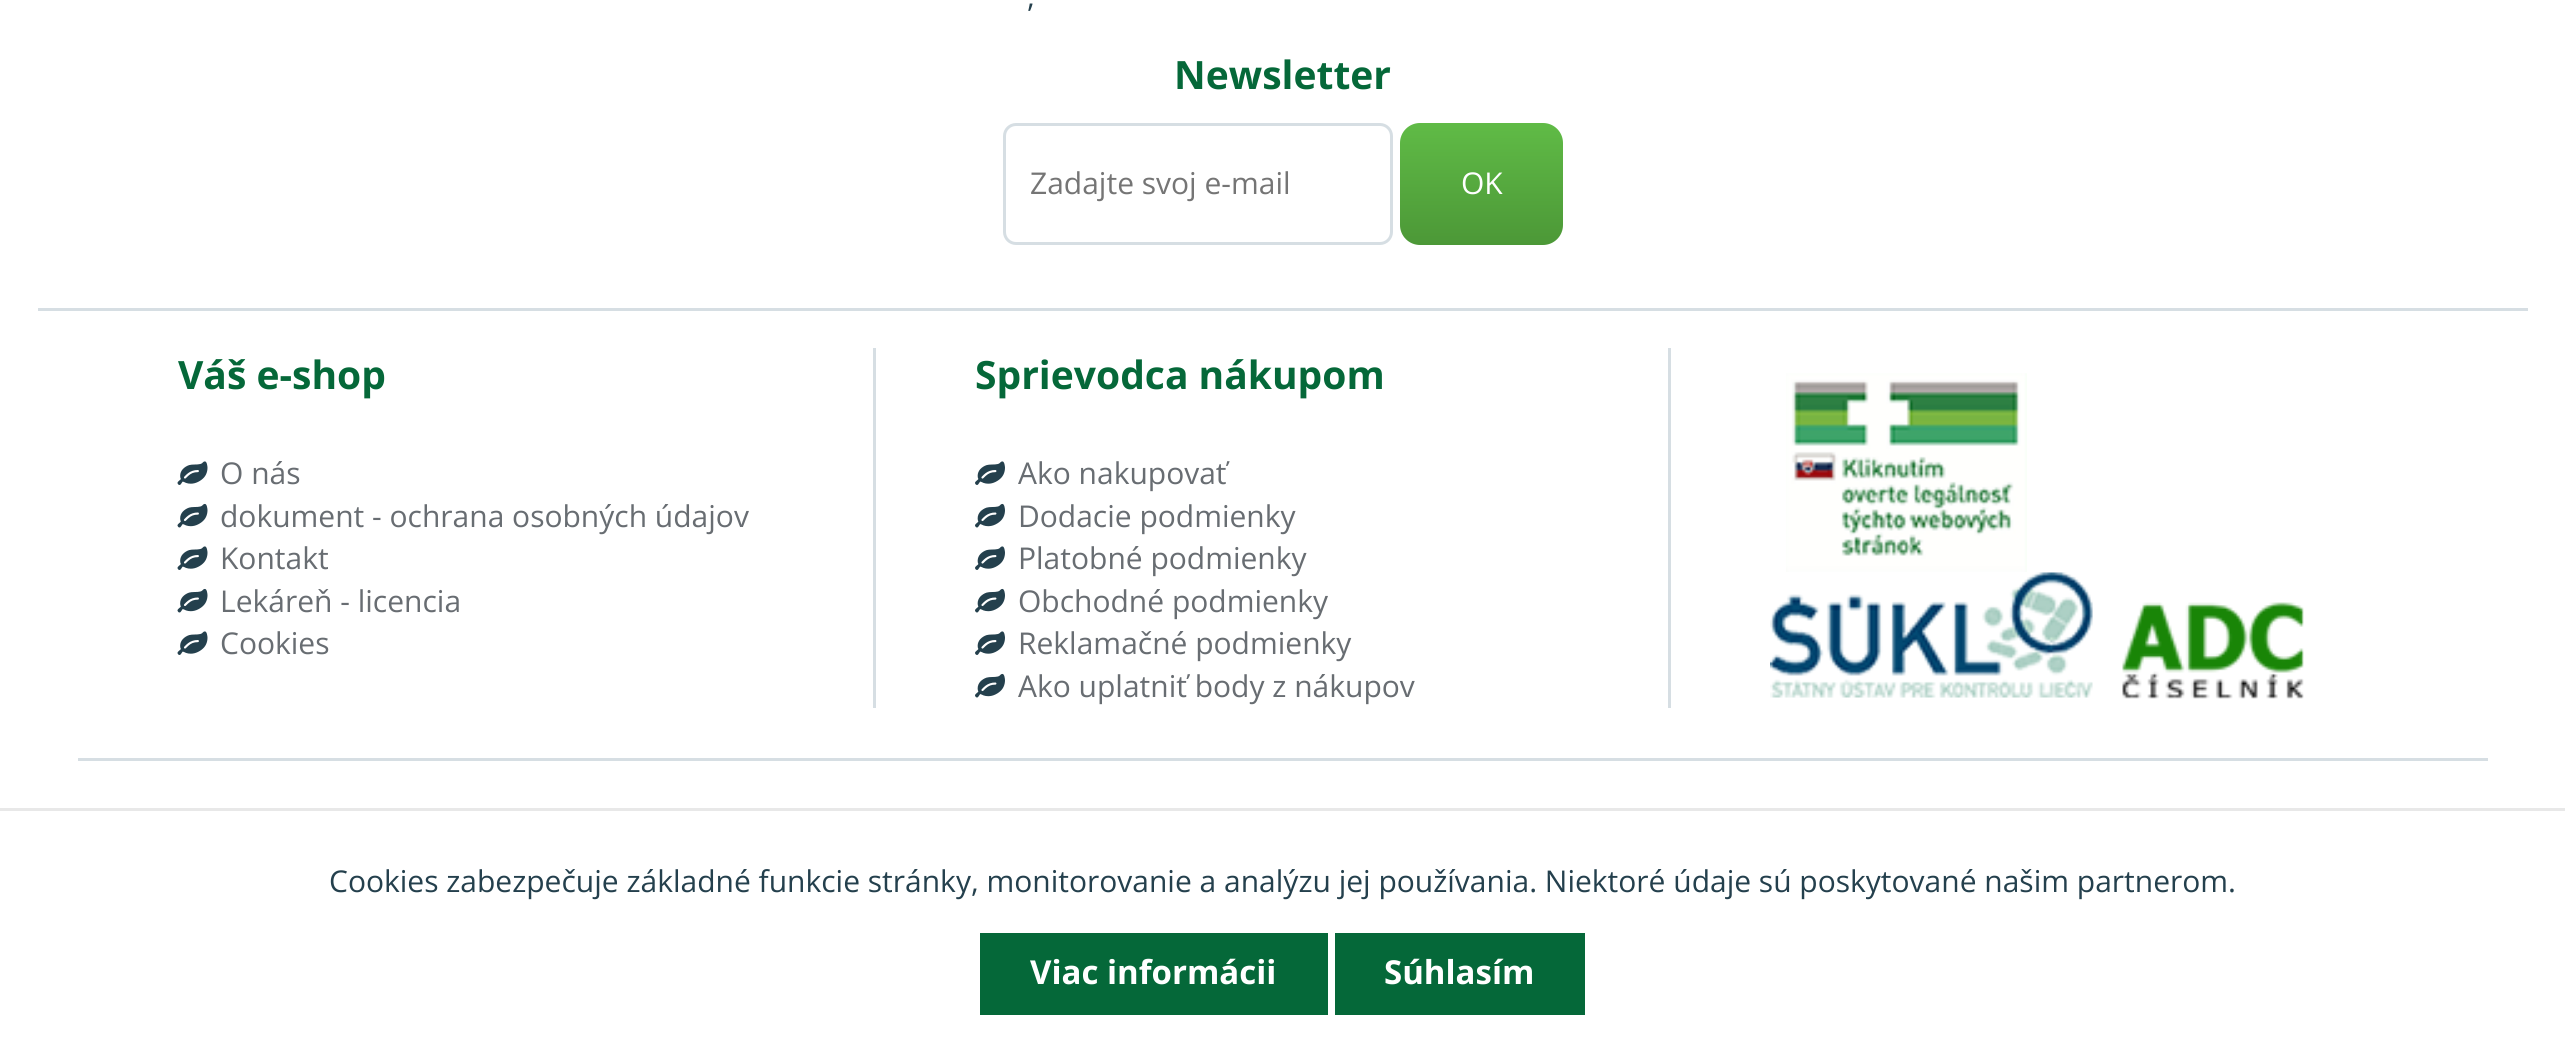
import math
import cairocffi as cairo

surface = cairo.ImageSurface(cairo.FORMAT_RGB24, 2565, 1054)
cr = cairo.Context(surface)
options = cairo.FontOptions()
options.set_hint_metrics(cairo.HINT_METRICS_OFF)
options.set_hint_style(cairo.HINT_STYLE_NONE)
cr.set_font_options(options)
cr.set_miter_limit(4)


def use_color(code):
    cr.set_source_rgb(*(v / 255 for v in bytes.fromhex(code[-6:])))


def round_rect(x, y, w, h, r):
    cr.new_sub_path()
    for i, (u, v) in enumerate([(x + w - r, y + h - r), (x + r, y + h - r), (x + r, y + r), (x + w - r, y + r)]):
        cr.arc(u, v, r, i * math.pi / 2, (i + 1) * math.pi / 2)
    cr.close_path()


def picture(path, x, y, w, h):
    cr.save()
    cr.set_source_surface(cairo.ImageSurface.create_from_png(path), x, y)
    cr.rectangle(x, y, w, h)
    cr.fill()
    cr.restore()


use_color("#ffffff")
cr.paint()
use_color("#d6dee3")
cr.rectangle(38, 308, 2490, 3)
cr.fill()
cr.select_font_face("Open Sans")
cr.set_font_size(30)
use_color("#24404d")
cr.move_to(1027, 7)
cr.show_text(",")
cr.select_font_face("Open Sans", cairo.FONT_SLANT_NORMAL, cairo.FONT_WEIGHT_BOLD)
cr.set_font_size(39)
use_color("#056839")
cr.move_to(1174, 89)
cr.show_text("Newsletter")
round_rect(1004.5, 124.5, 387, 119, 11.5)
use_color("#d6dee3")
cr.set_line_width(3)
cr.stroke()
cr.select_font_face("Open Sans")
cr.set_font_size(30)
use_color("#757575")
cr.move_to(1030, 194)
cr.show_text("Zadajte svoj e-mail")
gradient = cairo.LinearGradient(1481, 123, 1481, 245)
gradient.add_color_stop_rgba(0, 0.376, 0.733, 0.275, 1)
gradient.add_color_stop_rgba(1, 0.298, 0.596, 0.216, 1)
cr.set_source(gradient)
round_rect(1400, 123, 163, 122, 20)
cr.fill()
use_color("#ffffff")
cr.move_to(1461, 194)
cr.show_text("OK")
cr.select_font_face("Open Sans", cairo.FONT_SLANT_NORMAL, cairo.FONT_WEIGHT_BOLD)
cr.set_font_size(39)
use_color("#056839")
cr.move_to(178, 389)
cr.show_text("Váš e-shop")
picture("img1.png", 177, 461, 31, 24)
cr.select_font_face("Open Sans")
cr.set_font_size(30)
use_color("#686d72")
cr.move_to(220, 484)
cr.show_text("O nás")
picture("img2.png", 177, 503, 31, 25)
cr.move_to(220, 527)
cr.show_text("dokument - ochrana osobných údajov")
picture("img1.png", 177, 546, 31, 24)
cr.move_to(220, 569)
cr.show_text("Kontakt")
picture("img2.png", 177, 588, 31, 25)
cr.move_to(220, 612)
cr.show_text("Lekáreň - licencia")
picture("img1.png", 177, 631, 31, 24)
cr.move_to(220, 654)
cr.show_text("Cookies")
use_color("#d6dee3")
cr.rectangle(873, 348, 3, 360)
cr.fill()
cr.select_font_face("Open Sans", cairo.FONT_SLANT_NORMAL, cairo.FONT_WEIGHT_BOLD)
cr.set_font_size(39)
use_color("#056839")
cr.move_to(975, 389)
cr.show_text("Sprievodca nákupom")
picture("img3.png", 975, 461, 30, 24)
cr.select_font_face("Open Sans")
cr.set_font_size(30)
use_color("#686d72")
cr.move_to(1018, 484)
cr.show_text("Ako nakupovať")
picture("img4.png", 975, 503, 30, 25)
cr.move_to(1018, 527)
cr.show_text("Dodacie podmienky")
picture("img3.png", 975, 546, 30, 24)
cr.move_to(1018, 569)
cr.show_text("Platobné podmienky")
picture("img4.png", 975, 588, 30, 25)
cr.move_to(1018, 612)
cr.show_text("Obchodné podmienky")
picture("img3.png", 975, 631, 30, 24)
cr.move_to(1018, 654)
cr.show_text("Reklamačné podmienky")
picture("img4.png", 975, 673, 30, 25)
cr.move_to(1018, 697)
cr.show_text("Ako uplatniť body z nákupov")
use_color("#d6dee3")
cr.rectangle(1668, 348, 3, 360)
cr.fill()
picture("img5.png", 1786, 373, 241, 199)
picture("img6.png", 1770, 572, 323, 126)
picture("img7.png", 2122, 602, 182, 97)
cr.rectangle(78, 758, 2410, 3)
cr.fill()
use_color("#e8e8e8")
cr.rectangle(0, 808, 2565, 3)
cr.fill()
use_color("#24404d")
cr.move_to(329, 892)
cr.show_text("Cookies zabezpečuje základné funkcie stránky, monitorovanie a analýzu jej používania. Niektoré údaje sú poskytované našim partnerom.")
use_color("#056839")
cr.rectangle(980, 933, 348, 82)
cr.fill()
cr.select_font_face("Open Sans", cairo.FONT_SLANT_NORMAL, cairo.FONT_WEIGHT_BOLD)
cr.set_font_size(33)
use_color("#ffffff")
cr.move_to(1030, 984)
cr.show_text("Viac informácii")
use_color("#056839")
cr.rectangle(1335, 933, 250, 82)
cr.fill()
use_color("#ffffff")
cr.move_to(1384, 984)
cr.show_text("Súhlasím")
surface.write_to_png("result.png")
